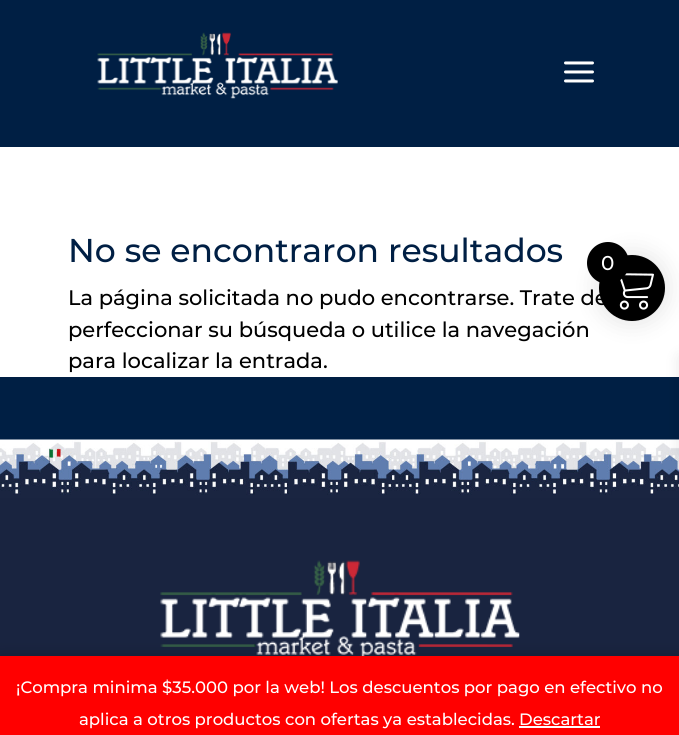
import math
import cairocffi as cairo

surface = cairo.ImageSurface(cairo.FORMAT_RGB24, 679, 735)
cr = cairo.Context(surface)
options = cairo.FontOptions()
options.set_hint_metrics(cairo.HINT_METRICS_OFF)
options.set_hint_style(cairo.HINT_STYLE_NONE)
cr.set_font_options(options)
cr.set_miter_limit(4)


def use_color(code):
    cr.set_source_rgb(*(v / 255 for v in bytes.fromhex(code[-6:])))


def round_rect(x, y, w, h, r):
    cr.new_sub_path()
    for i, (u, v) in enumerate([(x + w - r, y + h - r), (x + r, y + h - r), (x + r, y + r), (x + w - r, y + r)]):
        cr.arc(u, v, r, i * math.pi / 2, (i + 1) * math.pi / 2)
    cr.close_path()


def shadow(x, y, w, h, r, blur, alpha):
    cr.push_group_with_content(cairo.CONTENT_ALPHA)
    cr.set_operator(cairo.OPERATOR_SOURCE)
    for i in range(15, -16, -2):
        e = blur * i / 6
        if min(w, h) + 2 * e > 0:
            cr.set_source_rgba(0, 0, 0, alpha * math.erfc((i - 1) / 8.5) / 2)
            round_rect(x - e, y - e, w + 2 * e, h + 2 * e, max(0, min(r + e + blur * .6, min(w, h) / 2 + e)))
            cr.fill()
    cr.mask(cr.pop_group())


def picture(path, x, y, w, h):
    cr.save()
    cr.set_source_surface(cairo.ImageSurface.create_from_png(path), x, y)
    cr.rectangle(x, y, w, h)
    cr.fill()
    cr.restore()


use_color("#001f44")
cr.paint()
picture("img1.png", 97, 32, 241, 67)
picture("img2.png", 564, 61, 30, 22)
use_color("#ffffff")
cr.rectangle(0, 147, 679, 230)
cr.fill()
cr.select_font_face("Montserrat Medium")
cr.set_font_size(33)
use_color("#001f44")
cr.move_to(68, 262)
cr.show_text("No se encontraron resultados")
cr.set_font_size(21)
use_color("#000000")
cr.move_to(68, 305)
cr.show_text("La página solicitada no pudo encontrarse. Trate de")
cr.move_to(68, 337)
cr.show_text("perfeccionar su búsqueda o utilice la navegación")
cr.move_to(68, 368)
cr.show_text("para localizar la entrada.")
picture("img3.png", 0, 439, 679, 59)
use_color("#192440")
cr.rectangle(0, 498, 679, 158)
cr.fill()
picture("img4.png", 160, 560, 360, 96)
use_color("#000000")
shadow(596, 252, 72, 72, 36, 11, 0.1)
use_color("#000000")
cr.arc(632, 288, 33, 0, 2 * math.pi)
cr.fill()
picture("img5.png", 619, 273, 35, 37)
cr.arc(608, 263, 21, 0, 2 * math.pi)
cr.fill()
cr.set_font_size(20)
use_color("#ffffff")
cr.move_to(601, 270)
cr.show_text("0")
use_color("#000000")
shadow(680, 357, 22, 98, 0, 7.5, 0.1)
shadow(0, 657, 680, 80, 0, 8, 0.2)
use_color("#ff0000")
cr.rectangle(0, 656, 679, 79)
cr.fill()
cr.set_font_size(16.5)
use_color("#ffffff")
cr.move_to(16, 693)
cr.show_text("¡Compra minima $35.000 por la web! Los descuentos por pago en efectivo no")
cr.move_to(79, 725)
cr.show_text("aplica a otros productos con ofertas ya establecidas.")
cr.move_to(519, 725)
cr.show_text("Descartar")
use_color("#fcfbfe")
cr.rectangle(519, 726, 81, 2)
cr.fill()
surface.write_to_png("result.png")
